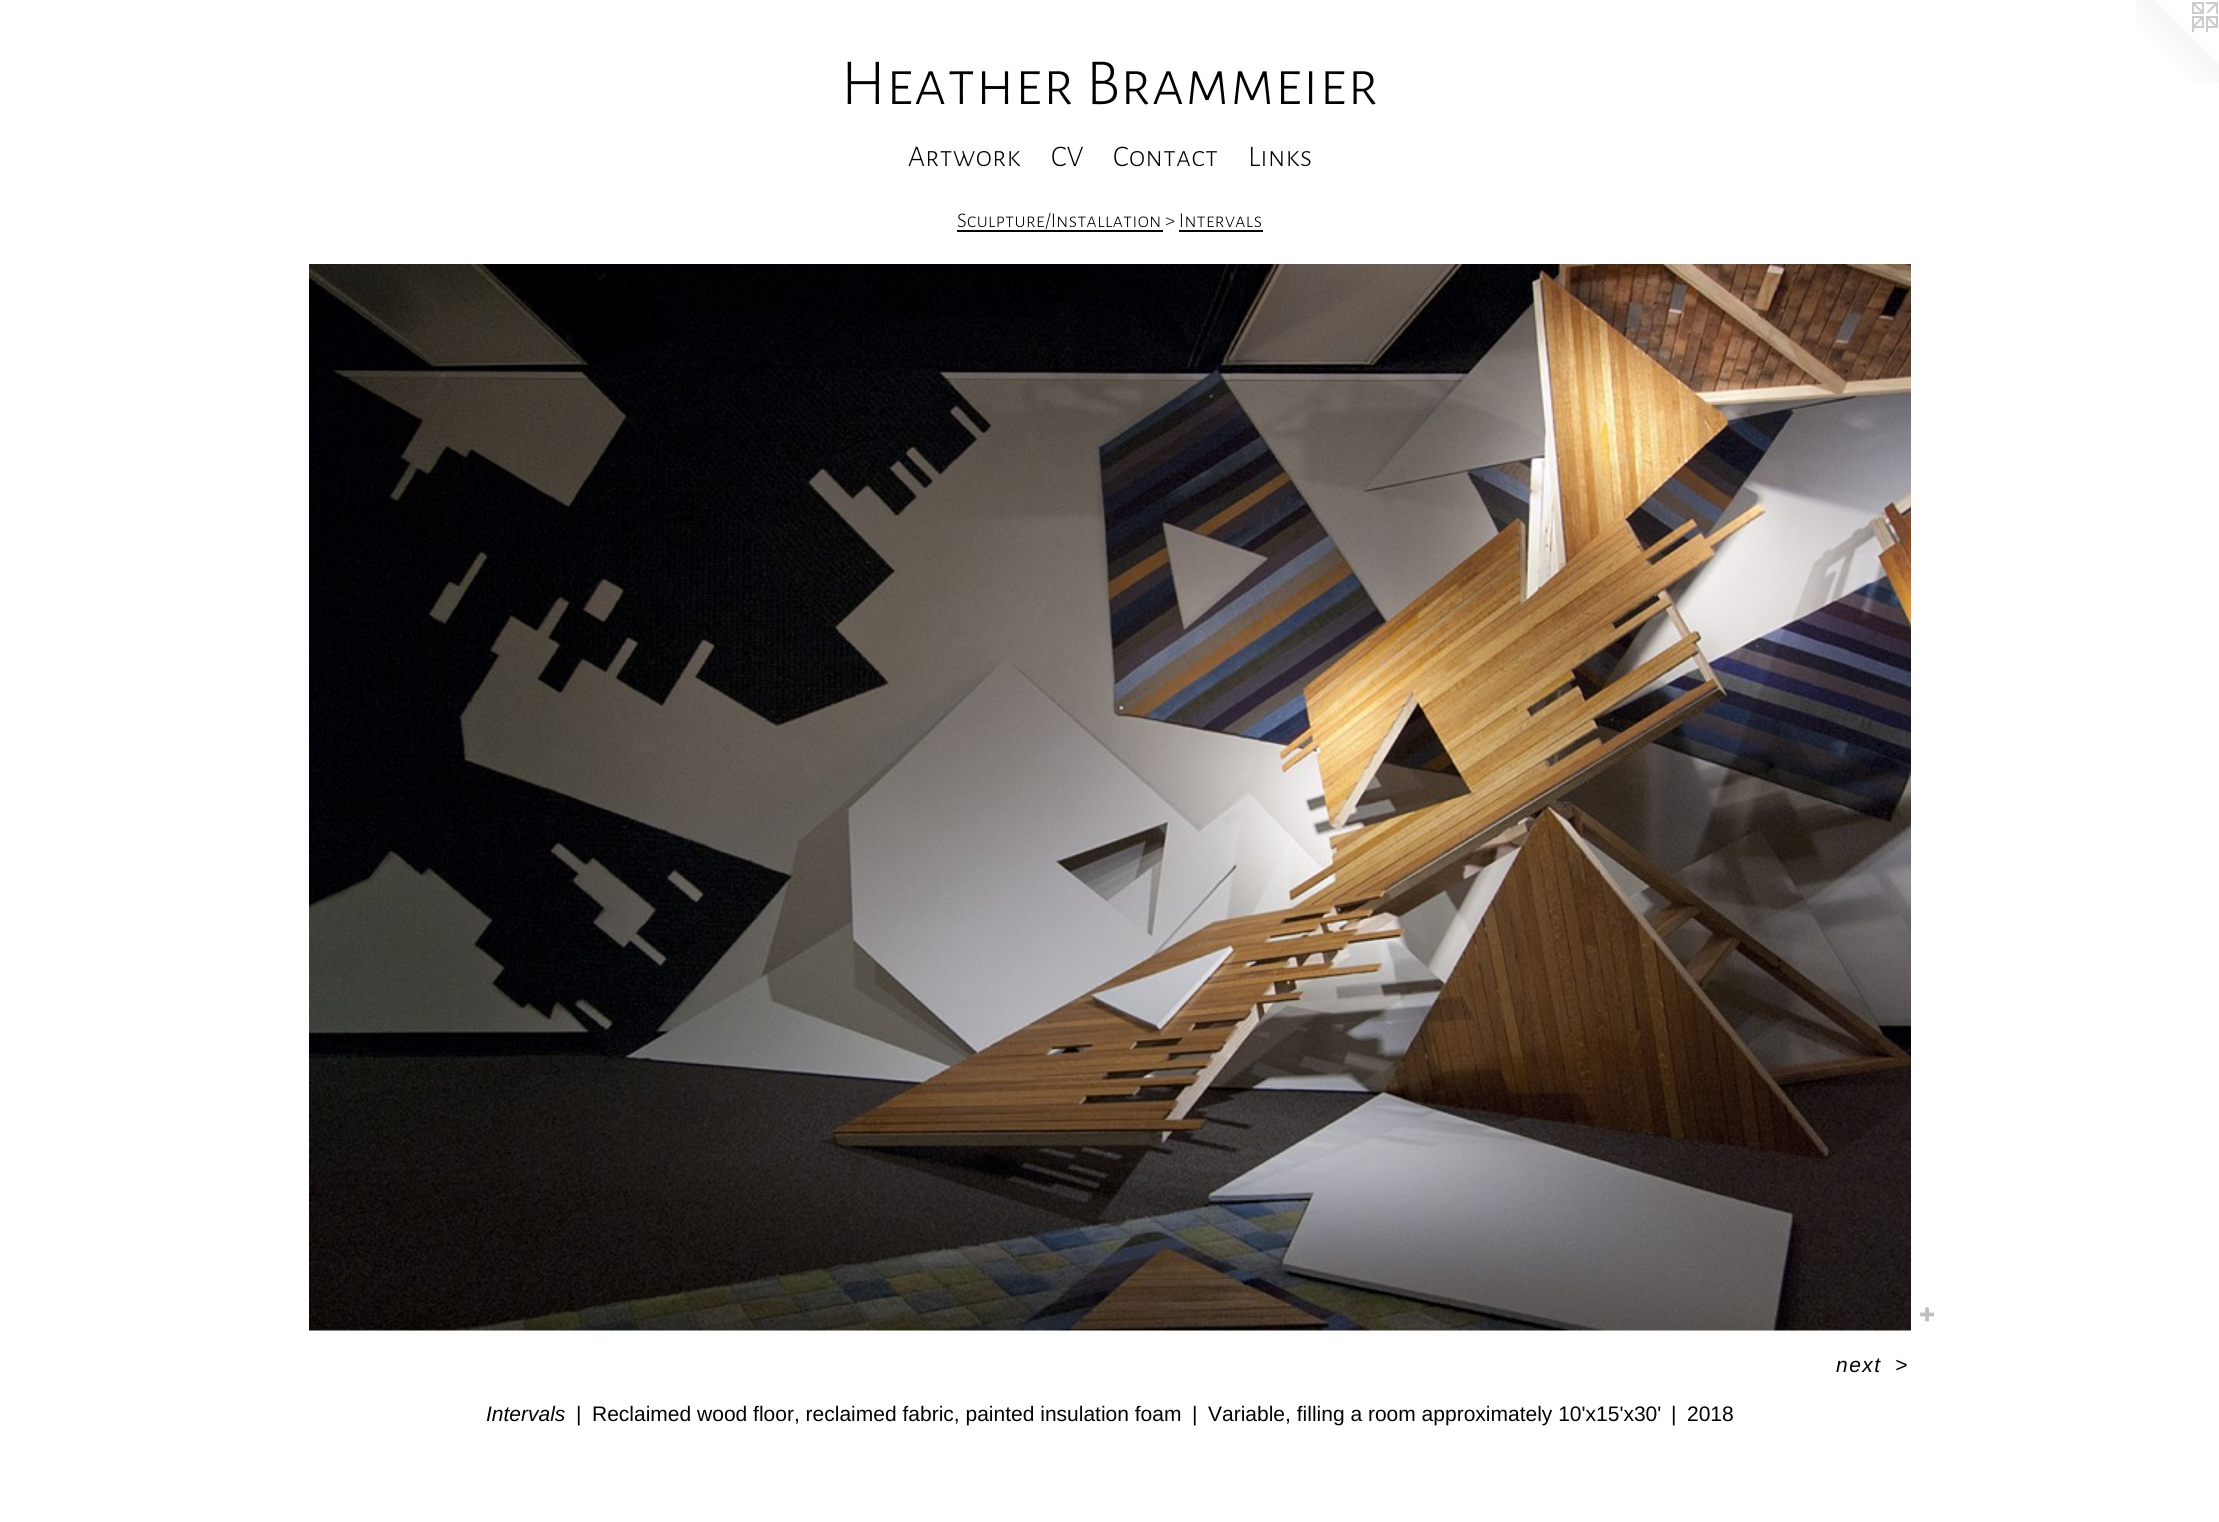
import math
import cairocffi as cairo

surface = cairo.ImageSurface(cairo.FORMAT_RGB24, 2219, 1522)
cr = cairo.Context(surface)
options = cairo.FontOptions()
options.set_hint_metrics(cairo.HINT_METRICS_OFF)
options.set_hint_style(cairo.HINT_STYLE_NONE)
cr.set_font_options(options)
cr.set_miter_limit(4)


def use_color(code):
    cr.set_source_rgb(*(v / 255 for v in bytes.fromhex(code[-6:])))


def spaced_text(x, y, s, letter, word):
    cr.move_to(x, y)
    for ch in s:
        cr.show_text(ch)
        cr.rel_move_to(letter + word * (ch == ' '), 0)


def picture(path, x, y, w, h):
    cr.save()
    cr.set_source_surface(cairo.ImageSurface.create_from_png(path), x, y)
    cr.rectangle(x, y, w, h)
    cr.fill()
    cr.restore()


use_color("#ffffff")
cr.paint()
cr.select_font_face("Alegreya Sans SC Light")
cr.set_font_size(66)
use_color("#020203")
cr.move_to(841, 104)
cr.show_text("Heather Brammeier")
picture("img1.png", 2136, 0, 83, 83)
cr.set_font_size(30)
cr.move_to(908, 166)
cr.show_text("Artwork")
cr.move_to(1051, 166)
cr.show_text("CV")
cr.move_to(1113, 166)
cr.show_text("Contact")
cr.move_to(1248, 166)
cr.show_text("Links")
cr.set_font_size(21)
cr.move_to(957, 227)
cr.show_text("Sculpture/Installation > Intervals")
cr.rectangle(957, 230, 206, 2)
cr.fill()
cr.rectangle(1179, 230, 84, 2)
cr.fill()
picture("img2.png", 309, 264, 1602, 1067)
picture("img3.png", 1920, 1307, 15, 15)
cr.select_font_face("Liberation Sans", cairo.FONT_SLANT_ITALIC)
spaced_text(1836, 1372, "next", 1.5, 0)
spaced_text(1895, 1372, ">", 1.5, 0)
cr.move_to(486, 1421)
cr.show_text("Intervals")
cr.select_font_face("Liberation Sans")
cr.move_to(576, 1421)
cr.show_text("|")
cr.move_to(592, 1421)
cr.show_text("Reclaimed wood floor, reclaimed fabric, painted insulation foam")
cr.move_to(1192, 1421)
cr.show_text("|")
cr.move_to(1208, 1421)
cr.show_text("Variable, filling a room approximately 10'x15'x30'")
cr.move_to(1671, 1421)
cr.show_text("|")
cr.move_to(1687, 1421)
cr.show_text("2018")
surface.write_to_png("result.png")
